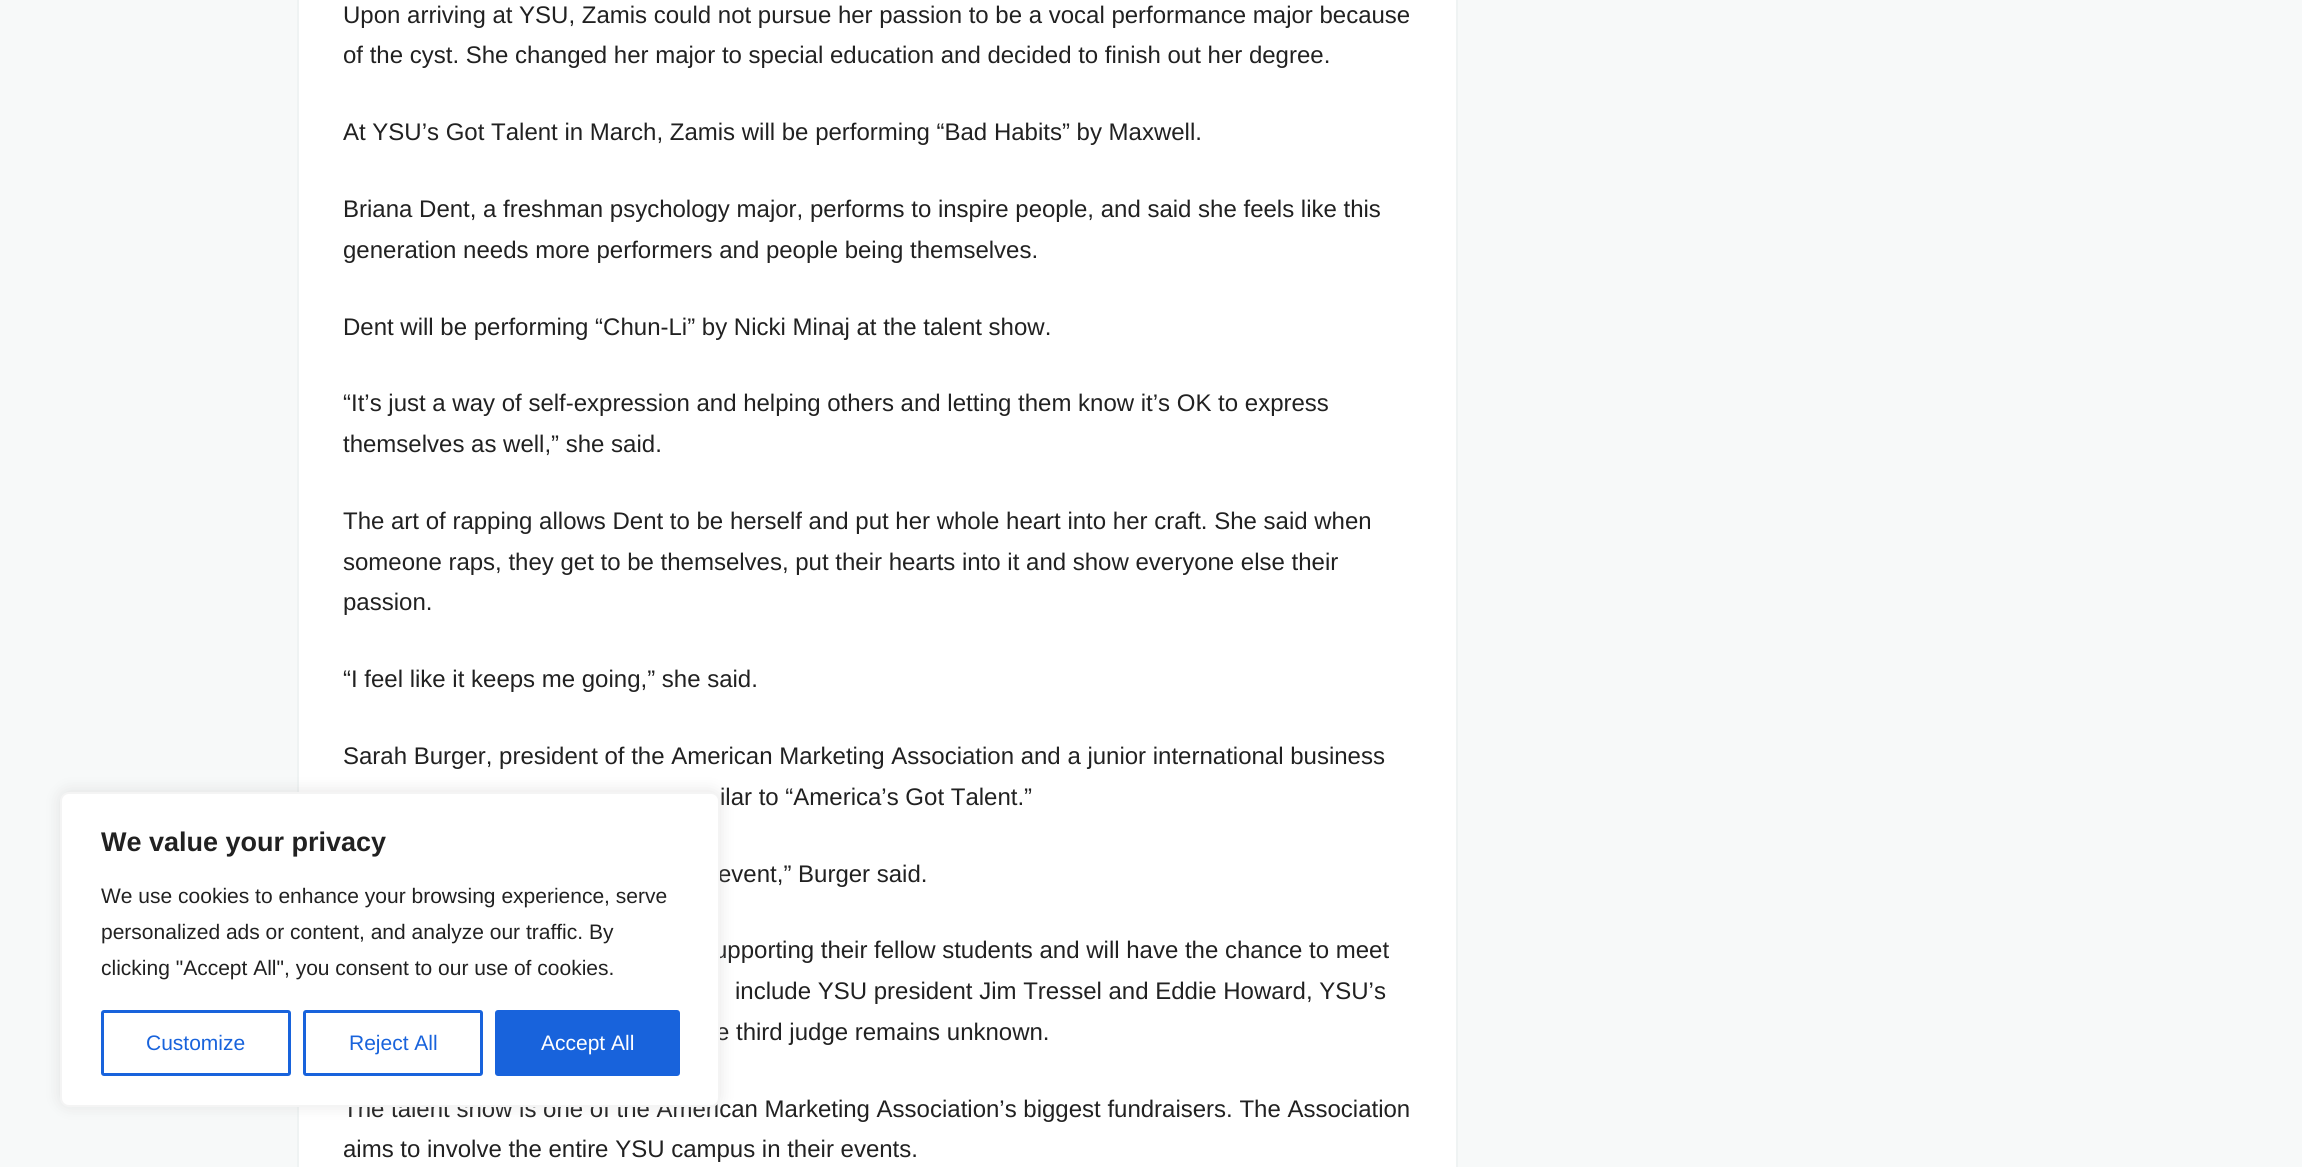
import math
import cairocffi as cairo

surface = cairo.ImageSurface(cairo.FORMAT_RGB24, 2302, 1167)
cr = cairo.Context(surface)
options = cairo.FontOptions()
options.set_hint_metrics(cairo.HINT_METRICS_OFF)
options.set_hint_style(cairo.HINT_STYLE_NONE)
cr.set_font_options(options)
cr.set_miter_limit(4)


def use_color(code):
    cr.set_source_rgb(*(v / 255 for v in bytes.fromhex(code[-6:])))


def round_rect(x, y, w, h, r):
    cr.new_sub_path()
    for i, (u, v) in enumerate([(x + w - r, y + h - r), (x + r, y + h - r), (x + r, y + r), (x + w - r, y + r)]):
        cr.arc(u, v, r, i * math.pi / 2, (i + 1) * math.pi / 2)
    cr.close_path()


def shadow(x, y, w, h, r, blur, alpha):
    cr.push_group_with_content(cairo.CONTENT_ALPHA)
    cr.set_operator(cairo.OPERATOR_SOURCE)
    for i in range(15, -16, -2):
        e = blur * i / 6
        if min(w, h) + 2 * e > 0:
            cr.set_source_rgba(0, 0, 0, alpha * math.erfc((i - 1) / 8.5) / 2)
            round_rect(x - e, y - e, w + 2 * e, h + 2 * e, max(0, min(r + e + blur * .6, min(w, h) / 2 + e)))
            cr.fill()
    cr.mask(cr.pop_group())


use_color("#f7f9f9")
cr.paint()
use_color("#ffffff")
cr.rectangle(298, -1, 1159, 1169)
cr.fill_preserve()
use_color("#eff3f3")
cr.stroke()
cr.select_font_face("Liberation Sans")
cr.set_font_size(24)
use_color("#212121")
cr.move_to(343, 23)
cr.show_text("Upon arriving at YSU, Zamis could not pursue her passion to be a vocal performance major because")
cr.move_to(343, 63)
cr.show_text("of the cyst. She changed her major to special education and decided to finish out her degree.")
cr.move_to(343, 140)
cr.show_text("At YSU’s Got Talent in March, Zamis will be performing “Bad Habits” by Maxwell.")
cr.move_to(343, 217)
cr.show_text("Briana Dent, a freshman psychology major, performs to inspire people, and said she feels like this")
cr.move_to(343, 258)
cr.show_text("generation needs more performers and people being themselves.")
cr.move_to(343, 335)
cr.show_text("Dent will be performing “Chun-Li” by Nicki Minaj at the talent show.")
cr.move_to(343, 411)
cr.show_text("“It’s just a way of self-expression and helping others and letting them know it’s OK to express")
cr.move_to(343, 452)
cr.show_text("themselves as well,” she said.")
cr.move_to(343, 529)
cr.show_text("The art of rapping allows Dent to be herself and put her whole heart into her craft. She said when")
cr.move_to(343, 570)
cr.show_text("someone raps, they get to be themselves, put their hearts into it and show everyone else their")
cr.move_to(343, 610)
cr.show_text("passion.")
cr.move_to(343, 687)
cr.show_text("“I feel like it keeps me going,” she said.")
cr.move_to(343, 764)
cr.show_text("Sarah Burger, president of the American Marketing Association and a junior international business")
cr.move_to(720, 805)
cr.show_text("ilar to “America’s Got Talent.”")
cr.move_to(718, 882)
cr.show_text("event,” Burger said.")
cr.move_to(714, 958)
cr.show_text("upporting their fellow students and will have the chance to meet")
cr.move_to(735, 999)
cr.show_text("include YSU president Jim Tressel and Eddie Howard, YSU’s")
cr.move_to(716, 1040)
cr.show_text("e third judge remains unknown.")
cr.move_to(343, 1117)
cr.show_text("The talent show is one of the American Marketing Association’s biggest fundraisers. The Association")
cr.move_to(343, 1157)
cr.show_text("aims to involve the entire YSU campus in their events.")
use_color("#acabab")
shadow(60, 791, 660, 315, 9, 7.5, 0.3)
use_color("#ffffff")
round_rect(61, 793, 658, 313, 8)
cr.fill_preserve()
use_color("#f4f4f4")
cr.stroke()
cr.select_font_face("Liberation Sans", cairo.FONT_SLANT_NORMAL, cairo.FONT_WEIGHT_BOLD)
cr.set_font_size(27)
use_color("#212121")
cr.move_to(101, 851)
cr.show_text("We value your privacy")
cr.select_font_face("Liberation Sans")
cr.set_font_size(21)
cr.move_to(101, 903)
cr.show_text("We use cookies to enhance your browsing experience, serve")
cr.move_to(101, 939)
cr.show_text("personalized ads or content, and analyze our traffic. By")
cr.move_to(101, 975)
cr.show_text("clicking \"Accept All\", you consent to our use of cookies.")
round_rect(102.5, 1011.5, 187, 63, 1.5)
use_color("#1863dc")
cr.set_line_width(3)
cr.stroke()
cr.move_to(146, 1050)
cr.show_text("Customize")
round_rect(304.5, 1011.5, 177, 63, 1.5)
cr.stroke()
cr.move_to(349, 1050)
cr.show_text("Reject All")
round_rect(496.5, 1011.5, 182, 63, 1.5)
cr.fill_preserve()
cr.stroke()
use_color("#ffffff")
cr.move_to(541, 1050)
cr.show_text("Accept All")
surface.write_to_png("result.png")
